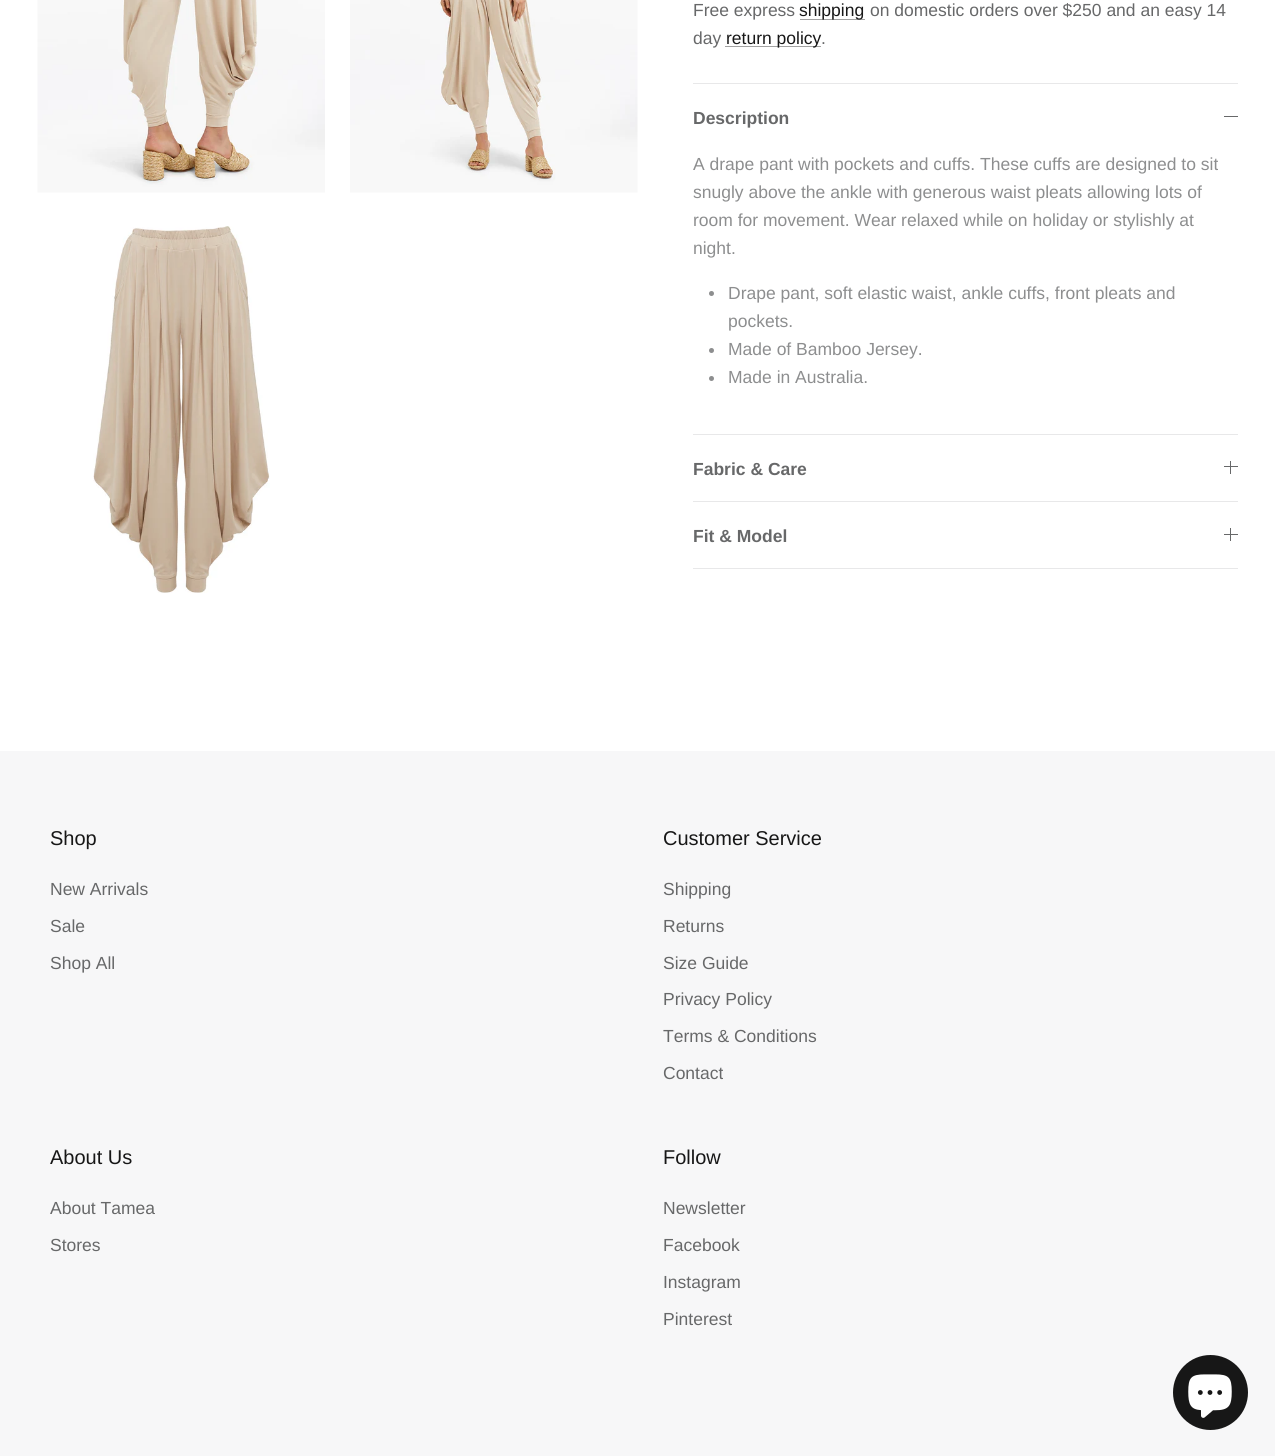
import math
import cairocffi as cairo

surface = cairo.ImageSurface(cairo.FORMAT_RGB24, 1275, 1456)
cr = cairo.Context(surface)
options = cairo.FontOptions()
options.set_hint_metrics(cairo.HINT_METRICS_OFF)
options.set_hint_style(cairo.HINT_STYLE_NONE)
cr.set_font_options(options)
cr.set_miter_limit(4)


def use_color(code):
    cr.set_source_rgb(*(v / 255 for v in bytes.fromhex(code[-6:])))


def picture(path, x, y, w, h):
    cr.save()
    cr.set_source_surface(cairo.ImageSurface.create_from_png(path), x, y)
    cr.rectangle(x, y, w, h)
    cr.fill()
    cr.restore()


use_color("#ffffff")
cr.paint()
picture("img1.png", 37, 0, 288, 193)
picture("img2.png", 350, 0, 288, 193)
picture("img3.png", 93, 226, 177, 367)
cr.select_font_face("Liberation Sans")
cr.set_font_size(17.5)
use_color("#676869")
cr.move_to(693, 16)
cr.show_text("Free express")
use_color("#a2a2a2")
cr.rectangle(800, 19, 65, 1)
cr.fill()
use_color("#171717")
cr.move_to(799, 16)
cr.show_text("shipping")
use_color("#676869")
cr.move_to(870, 16)
cr.show_text("on domestic orders over $250 and an easy 14")
cr.move_to(693, 44)
cr.show_text("day")
use_color("#a2a2a2")
cr.rectangle(725, 46, 96, 1)
cr.fill()
use_color("#171717")
cr.move_to(726, 44)
cr.show_text("return policy")
use_color("#676869")
cr.move_to(821, 44)
cr.show_text(".")
use_color("#e8e8e9")
cr.rectangle(693, 83, 545, 1)
cr.fill()
cr.rectangle(693, 434, 545, 1)
cr.fill()
cr.select_font_face("Liberation Sans", cairo.FONT_SLANT_NORMAL, cairo.FONT_WEIGHT_BOLD)
use_color("#676869")
cr.move_to(693, 124)
cr.show_text("Description")
cr.rectangle(1224, 116, 14, 1)
cr.fill()
cr.select_font_face("Liberation Sans")
use_color("#8d8e8f")
cr.move_to(693, 170)
cr.show_text("A drape pant with pockets and cuffs. These cuffs are designed to sit")
cr.move_to(693, 198)
cr.show_text("snugly above the ankle with generous waist pleats allowing lots of")
cr.move_to(693, 226)
cr.show_text("room for movement. Wear relaxed while on holiday or stylishly at")
cr.move_to(693, 254)
cr.show_text("night.")
cr.new_path()
cr.arc(711.5, 293.5, 2.5, 0, 2 * math.pi)
cr.fill()
cr.move_to(728, 299)
cr.show_text("Drape pant, soft elastic waist, ankle cuffs, front pleats and")
cr.move_to(728, 327)
cr.show_text("pockets.")
cr.new_path()
cr.arc(711.5, 350.5, 2.5, 0, 2 * math.pi)
cr.fill()
cr.move_to(728, 355)
cr.show_text("Made of Bamboo Jersey.")
cr.new_path()
cr.arc(711.5, 378.5, 2.5, 0, 2 * math.pi)
cr.fill()
cr.move_to(728, 383)
cr.show_text("Made in Australia.")
use_color("#e8e8e9")
cr.rectangle(693, 501, 545, 1)
cr.fill()
cr.select_font_face("Liberation Sans", cairo.FONT_SLANT_NORMAL, cairo.FONT_WEIGHT_BOLD)
use_color("#676869")
cr.move_to(693, 475)
cr.show_text("Fabric & Care")
cr.rectangle(1230, 461, 1, 13)
cr.fill()
cr.rectangle(1224, 466, 14, 1)
cr.fill()
use_color("#e8e8e9")
cr.rectangle(693, 568, 545, 1)
cr.fill()
use_color("#676869")
cr.move_to(693, 542)
cr.show_text("Fit & Model")
cr.rectangle(1230, 528, 1, 13)
cr.fill()
cr.rectangle(1224, 534, 14, 1)
cr.fill()
use_color("#f7f7f8")
cr.rectangle(0, 751, 1275, 705)
cr.fill()
cr.select_font_face("Liberation Sans")
cr.set_font_size(20)
use_color("#171717")
cr.move_to(50, 845)
cr.show_text("Shop")
cr.set_font_size(17.5)
use_color("#676869")
cr.move_to(50, 895)
cr.show_text("New Arrivals")
cr.move_to(50, 932)
cr.show_text("Sale")
cr.move_to(50, 969)
cr.show_text("Shop All")
cr.set_font_size(20)
use_color("#171717")
cr.move_to(663, 845)
cr.show_text("Customer Service")
cr.set_font_size(17.5)
use_color("#676869")
cr.move_to(663, 895)
cr.show_text("Shipping")
cr.move_to(663, 932)
cr.show_text("Returns")
cr.move_to(663, 969)
cr.show_text("Size Guide")
cr.move_to(663, 1005)
cr.show_text("Privacy Policy")
cr.move_to(663, 1042)
cr.show_text("Terms & Conditions")
cr.move_to(663, 1079)
cr.show_text("Contact")
cr.set_font_size(20)
use_color("#171717")
cr.move_to(50, 1164)
cr.show_text("About Us")
cr.set_font_size(17.5)
use_color("#676869")
cr.move_to(50, 1214)
cr.show_text("About Tamea")
cr.move_to(50, 1251)
cr.show_text("Stores")
cr.set_font_size(20)
use_color("#171717")
cr.move_to(663, 1164)
cr.show_text("Follow")
cr.set_font_size(17.5)
use_color("#676869")
cr.move_to(663, 1214)
cr.show_text("Newsletter")
cr.move_to(663, 1251)
cr.show_text("Facebook")
cr.move_to(663, 1288)
cr.show_text("Instagram")
cr.move_to(663, 1325)
cr.show_text("Pinterest")
use_color("#171717")
cr.new_path()
cr.arc(1210.5, 1392.5, 37.5, 0, 2 * math.pi)
cr.fill()
picture("img4.png", 1188, 1374, 44, 44)
surface.write_to_png("result.png")
